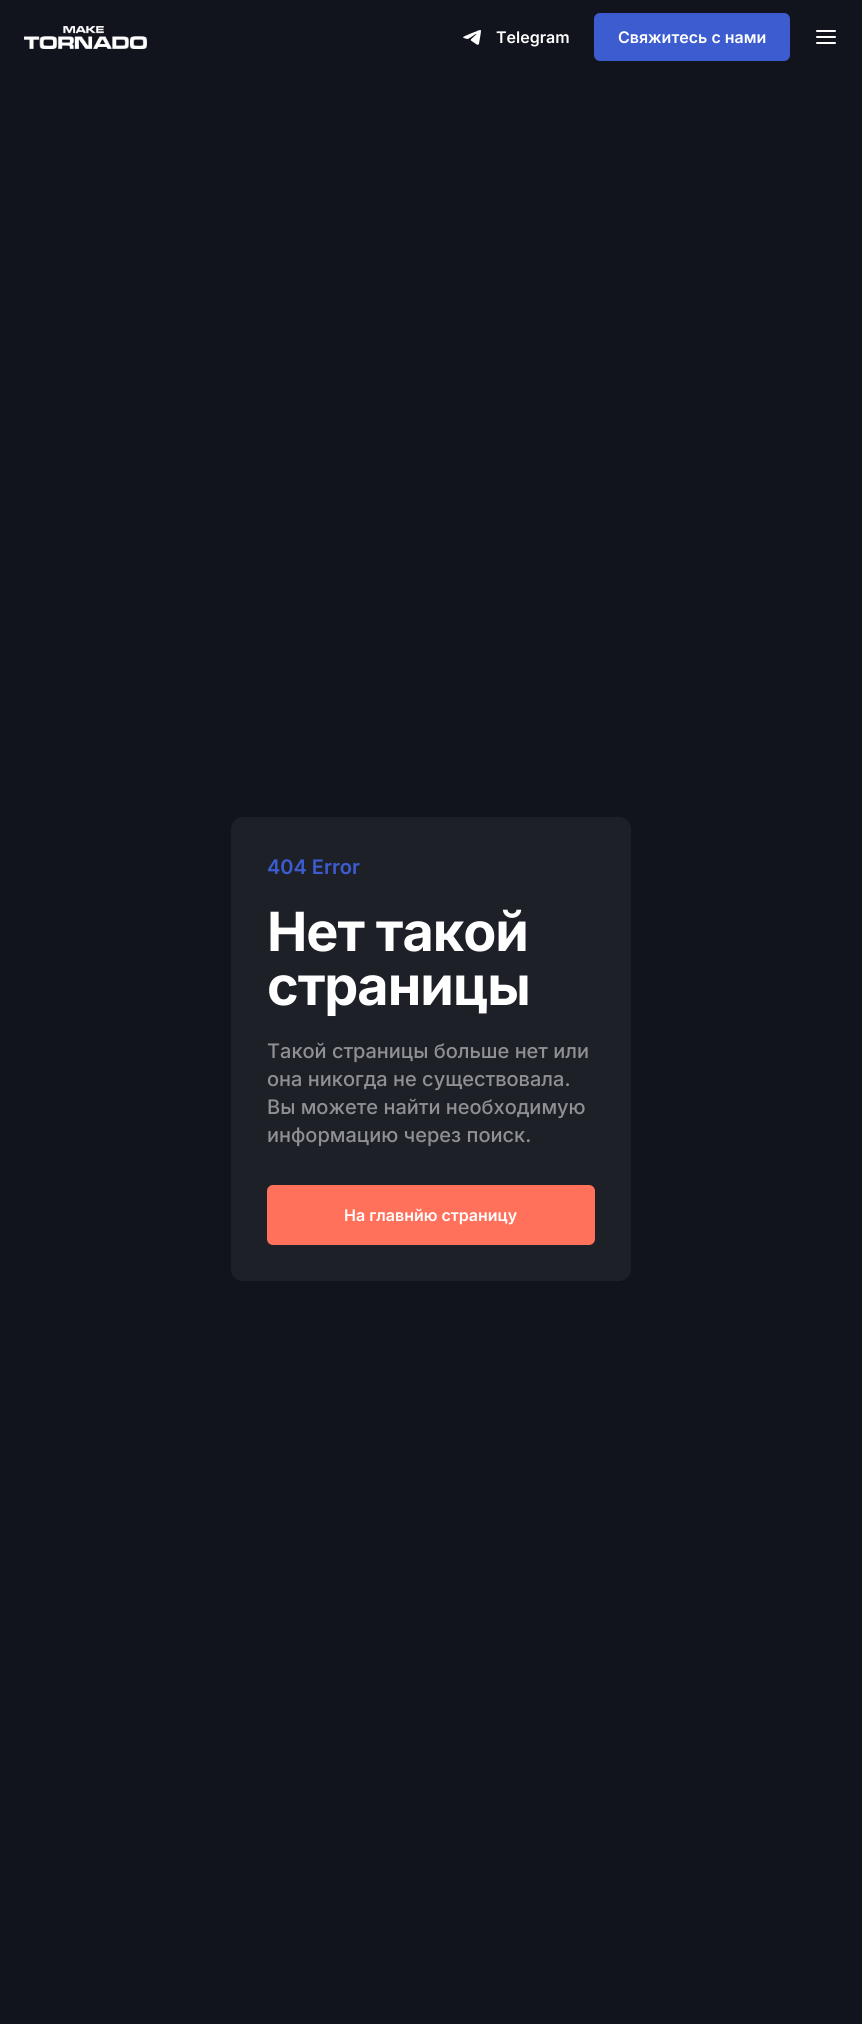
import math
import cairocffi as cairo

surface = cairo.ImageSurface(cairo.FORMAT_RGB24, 862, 2024)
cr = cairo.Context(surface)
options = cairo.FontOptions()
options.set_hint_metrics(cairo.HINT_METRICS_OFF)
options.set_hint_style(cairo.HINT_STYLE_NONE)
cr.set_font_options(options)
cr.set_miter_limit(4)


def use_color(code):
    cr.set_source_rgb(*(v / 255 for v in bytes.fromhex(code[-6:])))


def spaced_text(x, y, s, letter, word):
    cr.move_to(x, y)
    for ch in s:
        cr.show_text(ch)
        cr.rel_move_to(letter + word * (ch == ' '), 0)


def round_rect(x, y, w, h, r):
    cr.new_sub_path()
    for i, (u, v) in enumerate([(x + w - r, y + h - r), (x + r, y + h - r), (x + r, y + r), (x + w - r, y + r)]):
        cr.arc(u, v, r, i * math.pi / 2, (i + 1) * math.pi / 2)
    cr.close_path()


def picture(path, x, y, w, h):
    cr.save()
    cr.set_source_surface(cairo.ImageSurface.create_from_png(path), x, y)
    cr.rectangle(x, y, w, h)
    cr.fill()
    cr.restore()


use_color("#12141d")
cr.paint()
picture("img1.png", 24, 26, 123, 23)
picture("img2.png", 463, 30, 18, 15)
cr.select_font_face("Inter SemiBold")
cr.set_font_size(16)
use_color("#ffffff")
cr.move_to(496, 43)
cr.show_text("Telegram")
use_color("#3c5ccf")
round_rect(594, 13, 196, 48, 6)
cr.fill()
use_color("#ffffff")
cr.move_to(618, 43)
cr.show_text("Свяжитесь с нами")
cr.new_path()
cr.move_to(817, 37)
cr.line_to(835, 37)
cr.move_to(817, 31)
cr.line_to(835, 31)
cr.move_to(817, 43)
cr.line_to(835, 43)
cr.set_line_cap(cairo.LINE_CAP_ROUND)
cr.set_line_join(cairo.LINE_JOIN_ROUND)
cr.stroke()
use_color("#1e2028")
round_rect(231, 817, 400, 464, 12)
cr.fill()
cr.set_font_size(20)
use_color("#3c5ccf")
cr.move_to(267, 874)
cr.show_text("404 Error")
cr.select_font_face("Inter", cairo.FONT_SLANT_NORMAL, cairo.FONT_WEIGHT_BOLD)
cr.set_font_size(54)
use_color("#ffffff")
spaced_text(267, 951, "Нет такой", -1, 0)
spaced_text(267, 1005, "страницы", -1, 0)
cr.select_font_face("Inter Medium")
cr.set_font_size(20)
use_color("#8f9094")
cr.move_to(267, 1058)
cr.show_text("Такой страницы больше нет или")
cr.move_to(267, 1086)
cr.show_text("она никогда не существовала.")
cr.move_to(267, 1114)
cr.show_text("Вы можете найти необходимую")
cr.move_to(267, 1142)
cr.show_text("информацию через поиск.")
use_color("#ff715b")
round_rect(267, 1185, 328, 60, 6)
cr.fill()
cr.select_font_face("Inter SemiBold")
cr.set_font_size(16)
use_color("#ffffff")
cr.move_to(344, 1221)
cr.show_text("На главнйю страницу")
surface.write_to_png("result.png")
